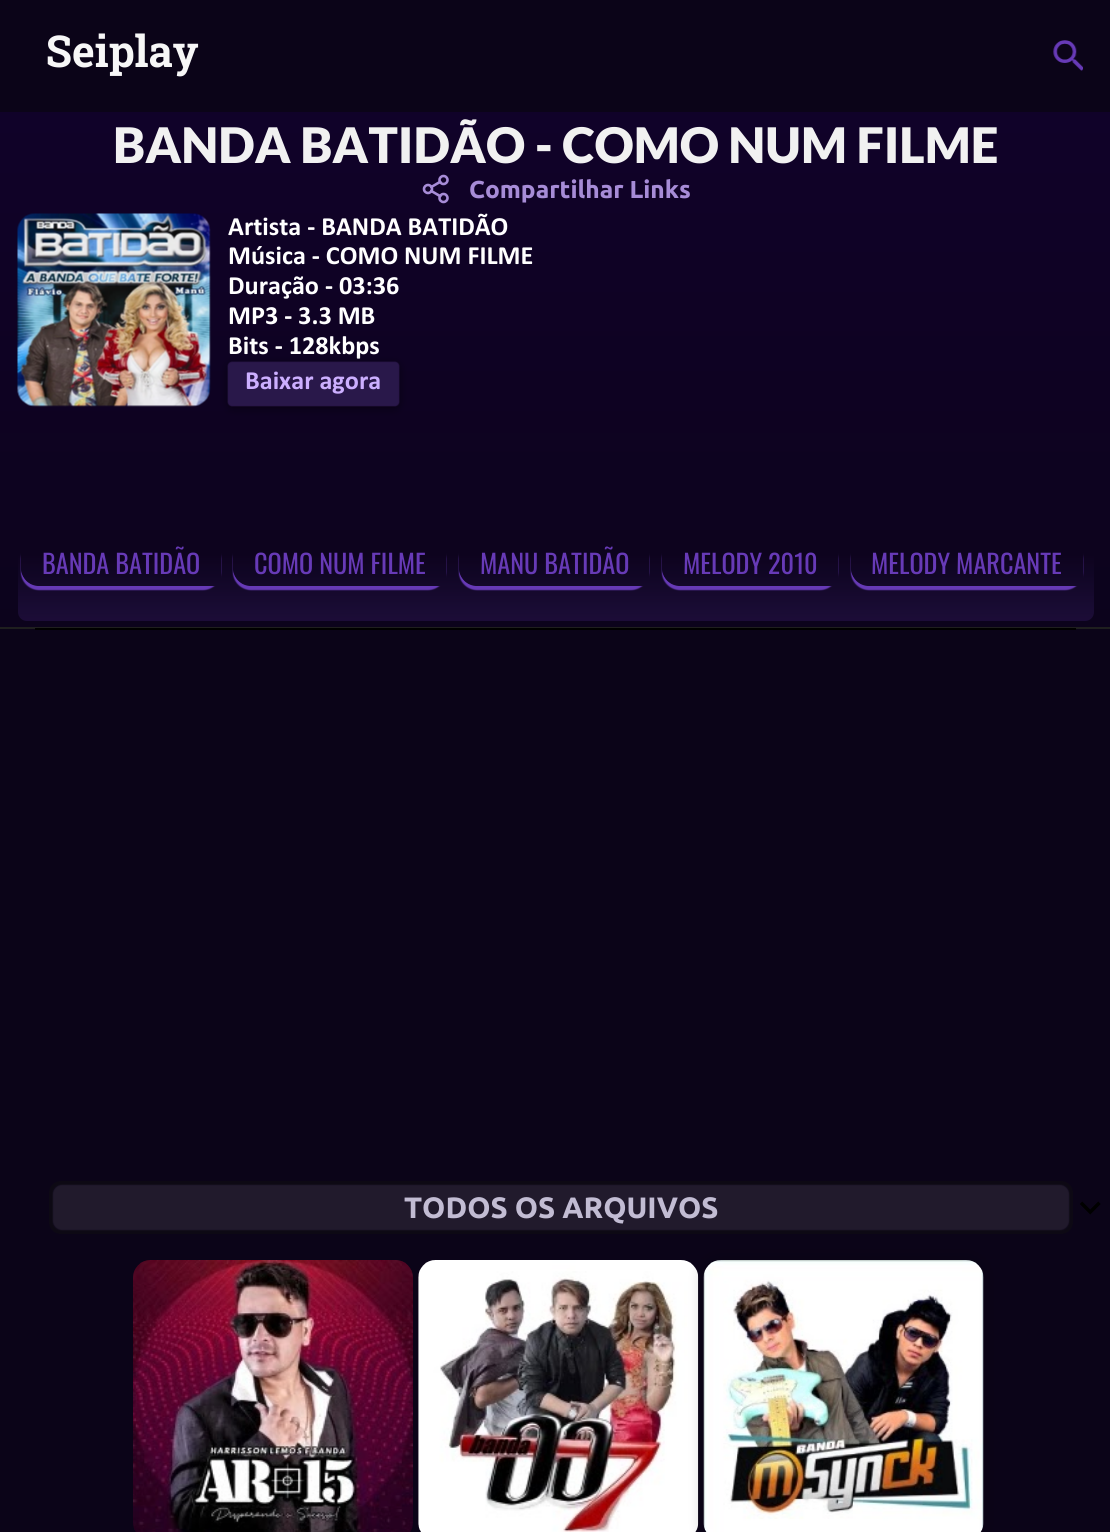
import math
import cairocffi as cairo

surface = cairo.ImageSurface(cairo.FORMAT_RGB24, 1110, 1532)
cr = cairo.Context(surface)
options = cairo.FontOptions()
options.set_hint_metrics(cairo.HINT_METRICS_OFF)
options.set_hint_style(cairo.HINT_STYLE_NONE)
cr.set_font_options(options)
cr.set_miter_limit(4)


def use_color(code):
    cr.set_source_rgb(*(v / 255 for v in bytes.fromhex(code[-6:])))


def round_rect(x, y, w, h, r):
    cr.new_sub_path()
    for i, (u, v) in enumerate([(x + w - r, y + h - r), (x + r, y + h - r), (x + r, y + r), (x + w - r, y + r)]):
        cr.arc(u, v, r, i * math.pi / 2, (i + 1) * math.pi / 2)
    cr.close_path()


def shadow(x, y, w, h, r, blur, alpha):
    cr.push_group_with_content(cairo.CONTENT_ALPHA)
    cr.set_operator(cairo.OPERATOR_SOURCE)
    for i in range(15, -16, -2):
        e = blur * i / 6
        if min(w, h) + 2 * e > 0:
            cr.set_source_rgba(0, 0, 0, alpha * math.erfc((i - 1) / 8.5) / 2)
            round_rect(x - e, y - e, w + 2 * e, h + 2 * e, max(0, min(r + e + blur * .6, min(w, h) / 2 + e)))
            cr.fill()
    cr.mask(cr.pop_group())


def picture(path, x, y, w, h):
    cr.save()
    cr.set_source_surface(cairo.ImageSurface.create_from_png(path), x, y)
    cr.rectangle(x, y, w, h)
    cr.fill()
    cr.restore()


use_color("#0b0418")
cr.paint()
cr.select_font_face("Hanuman", cairo.FONT_SLANT_NORMAL, cairo.FONT_WEIGHT_BOLD)
cr.set_font_size(44)
use_color("#f7f7f7")
cr.move_to(46, 67)
cr.show_text("Seiplay")
picture("img1.png", 1053, 40, 30, 31)
use_color("#1f1f1f")
cr.rectangle(0, 627, 1110, 2)
cr.fill()
gradient = cairo.LinearGradient(556, -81, 556, 627)
gradient.add_color_stop_rgba(0, 0.071, 0.004, 0.18, 1)
gradient.add_color_stop_rgba(1, 0.047, 0.012, 0.11, 1)
cr.set_source(gradient)
cr.rectangle(0, 112, 1110, 515)
cr.fill()
cr.select_font_face("Lato Black")
cr.set_font_size(49)
use_color("#f1f1f1")
cr.move_to(113, 163)
cr.show_text("BANDA BATIDÃO - COMO NUM FILME")
picture("img2.png", 422, 174, 27, 30)
cr.select_font_face("Ubuntu", cairo.FONT_SLANT_NORMAL, cairo.FONT_WEIGHT_BOLD)
cr.set_font_size(24.5)
use_color("#a78cd7")
cr.move_to(469, 198)
cr.show_text("Compartilhar Links")
picture("img3.png", 17, 213, 194, 194)
cr.select_font_face("Calibri", cairo.FONT_SLANT_NORMAL, cairo.FONT_WEIGHT_BOLD)
cr.set_font_size(26.25)
use_color("#ffffff")
cr.move_to(228, 235)
cr.show_text("Artista - BANDA BATIDÃO")
cr.move_to(228, 264)
cr.show_text("Música - COMO NUM FILME")
cr.move_to(228, 294)
cr.show_text("Duração - 03:36")
cr.move_to(228, 324)
cr.show_text("MP3 - 3.3 MB")
cr.move_to(228, 354)
cr.show_text("Bits - 128kbps")
cr.save()
cr.set_fill_rule(cairo.FILL_RULE_EVEN_ODD)
cr.new_path()
cr.move_to(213, 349)
cr.line_to(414, 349)
cr.line_to(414, 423)
cr.line_to(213, 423)
cr.close_path()
cr.move_to(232, 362)
cr.line_to(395, 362)
cr.curve_to(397, 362, 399, 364, 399, 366)
cr.line_to(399, 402)
cr.curve_to(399, 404, 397, 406, 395, 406)
cr.line_to(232, 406)
cr.curve_to(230, 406, 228, 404, 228, 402)
cr.line_to(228, 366)
cr.curve_to(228, 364, 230, 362, 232, 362)
cr.close_path()
cr.clip()
use_color("#000000")
shadow(228, 364, 171, 44, 4, 4.5, 0.5)
cr.restore()
use_color("#673ab7")
shadow(228, 362, 171, 44, 4, 0.5, 0.48)
use_color("#0f0f0f")
shadow(228, 362, 171, 44, 4, 0.5, 0.35)
use_color("#ccafff")
cr.move_to(245, 389)
cr.show_text("Baixar agora")
gradient = cairo.LinearGradient(556, 488, 556, 621)
gradient.add_color_stop_rgba(0, 0.404, 0.227, 0.718, 0)
gradient.add_color_stop_rgba(0.5, 0.404, 0.227, 0.718, 0)
gradient.add_color_stop_rgba(1, 0.404, 0.227, 0.718, 0.18)
cr.set_source(gradient)
cr.new_path()
cr.move_to(18, 488)
cr.line_to(1094, 488)
cr.line_to(1094, 612)
cr.curve_to(1094, 617, 1090, 621, 1085, 621)
cr.line_to(27, 621)
cr.curve_to(22, 621, 18, 617, 18, 612)
cr.close_path()
cr.fill()
cr.save()
cr.set_fill_rule(cairo.FILL_RULE_EVEN_ODD)
cr.new_path()
cr.move_to(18, 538)
cr.line_to(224, 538)
cr.line_to(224, 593)
cr.line_to(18, 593)
cr.close_path()
cr.move_to(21, 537)
cr.line_to(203, 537)
cr.curve_to(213, 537, 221, 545, 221, 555)
cr.line_to(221, 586)
cr.line_to(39, 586)
cr.curve_to(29, 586, 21, 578, 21, 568)
cr.close_path()
cr.clip()
use_color("#673ab7")
shadow(21, 541, 200, 49, 18, 0.5, 1)
cr.restore()
cr.select_font_face("Oswald")
use_color("#673ab7")
cr.move_to(42, 574)
cr.show_text("BANDA BATIDÃO")
cr.save()
cr.set_fill_rule(cairo.FILL_RULE_EVEN_ODD)
cr.new_path()
cr.move_to(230, 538)
cr.line_to(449, 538)
cr.line_to(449, 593)
cr.line_to(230, 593)
cr.close_path()
cr.move_to(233, 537)
cr.line_to(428, 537)
cr.curve_to(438, 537, 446, 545, 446, 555)
cr.line_to(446, 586)
cr.line_to(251, 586)
cr.curve_to(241, 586, 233, 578, 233, 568)
cr.close_path()
cr.clip()
use_color("#673ab7")
shadow(233, 541, 213, 49, 18, 0.5, 1)
cr.restore()
cr.move_to(254, 574)
cr.show_text("COMO NUM FILME")
cr.save()
cr.set_fill_rule(cairo.FILL_RULE_EVEN_ODD)
cr.new_path()
cr.move_to(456, 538)
cr.line_to(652, 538)
cr.line_to(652, 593)
cr.line_to(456, 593)
cr.close_path()
cr.move_to(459, 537)
cr.line_to(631, 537)
cr.curve_to(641, 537, 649, 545, 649, 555)
cr.line_to(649, 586)
cr.line_to(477, 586)
cr.curve_to(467, 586, 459, 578, 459, 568)
cr.close_path()
cr.clip()
use_color("#673ab7")
shadow(459, 541, 190, 49, 18, 0.5, 1)
cr.restore()
cr.move_to(480, 574)
cr.show_text("MANU BATIDÃO")
cr.save()
cr.set_fill_rule(cairo.FILL_RULE_EVEN_ODD)
cr.new_path()
cr.move_to(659, 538)
cr.line_to(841, 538)
cr.line_to(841, 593)
cr.line_to(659, 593)
cr.close_path()
cr.move_to(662, 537)
cr.line_to(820, 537)
cr.curve_to(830, 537, 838, 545, 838, 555)
cr.line_to(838, 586)
cr.line_to(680, 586)
cr.curve_to(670, 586, 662, 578, 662, 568)
cr.close_path()
cr.clip()
use_color("#673ab7")
shadow(662, 541, 176, 49, 18, 0.5, 1)
cr.restore()
cr.move_to(683, 574)
cr.show_text("MELODY 2010")
cr.save()
cr.set_fill_rule(cairo.FILL_RULE_EVEN_ODD)
cr.new_path()
cr.move_to(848, 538)
cr.line_to(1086, 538)
cr.line_to(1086, 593)
cr.line_to(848, 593)
cr.close_path()
cr.move_to(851, 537)
cr.line_to(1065, 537)
cr.curve_to(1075, 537, 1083, 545, 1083, 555)
cr.line_to(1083, 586)
cr.line_to(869, 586)
cr.curve_to(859, 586, 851, 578, 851, 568)
cr.close_path()
cr.clip()
use_color("#673ab7")
shadow(851, 541, 232, 49, 18, 0.5, 1)
cr.restore()
cr.move_to(871, 574)
cr.show_text("MELODY MARCANTE")
use_color("#000000")
cr.rectangle(35, 628, 1041, 2)
cr.fill()
round_rect(51, 1183, 1020, 49, 10)
use_color("#0d0914")
cr.set_line_width(4)
cr.stroke()
use_color("#211a2c")
shadow(53, 1185, 1016, 45, 9, 0.5, 1)
cr.select_font_face("Ubuntu", cairo.FONT_SLANT_NORMAL, cairo.FONT_WEIGHT_BOLD)
cr.set_font_size(29.5)
use_color("#c2bcd3")
cr.move_to(404, 1218)
cr.show_text("TODOS OS ARQUIVOS")
picture("img4.png", 1080, 1201, 21, 14)
picture("img5.png", 133, 1260, 280, 272)
picture("img6.png", 418, 1260, 281, 272)
use_color("#000000")
shadow(695, 1251, 297, 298, 26, 4.5, 0.07)
picture("img7.png", 703, 1260, 281, 272)
surface.write_to_png("result.png")
